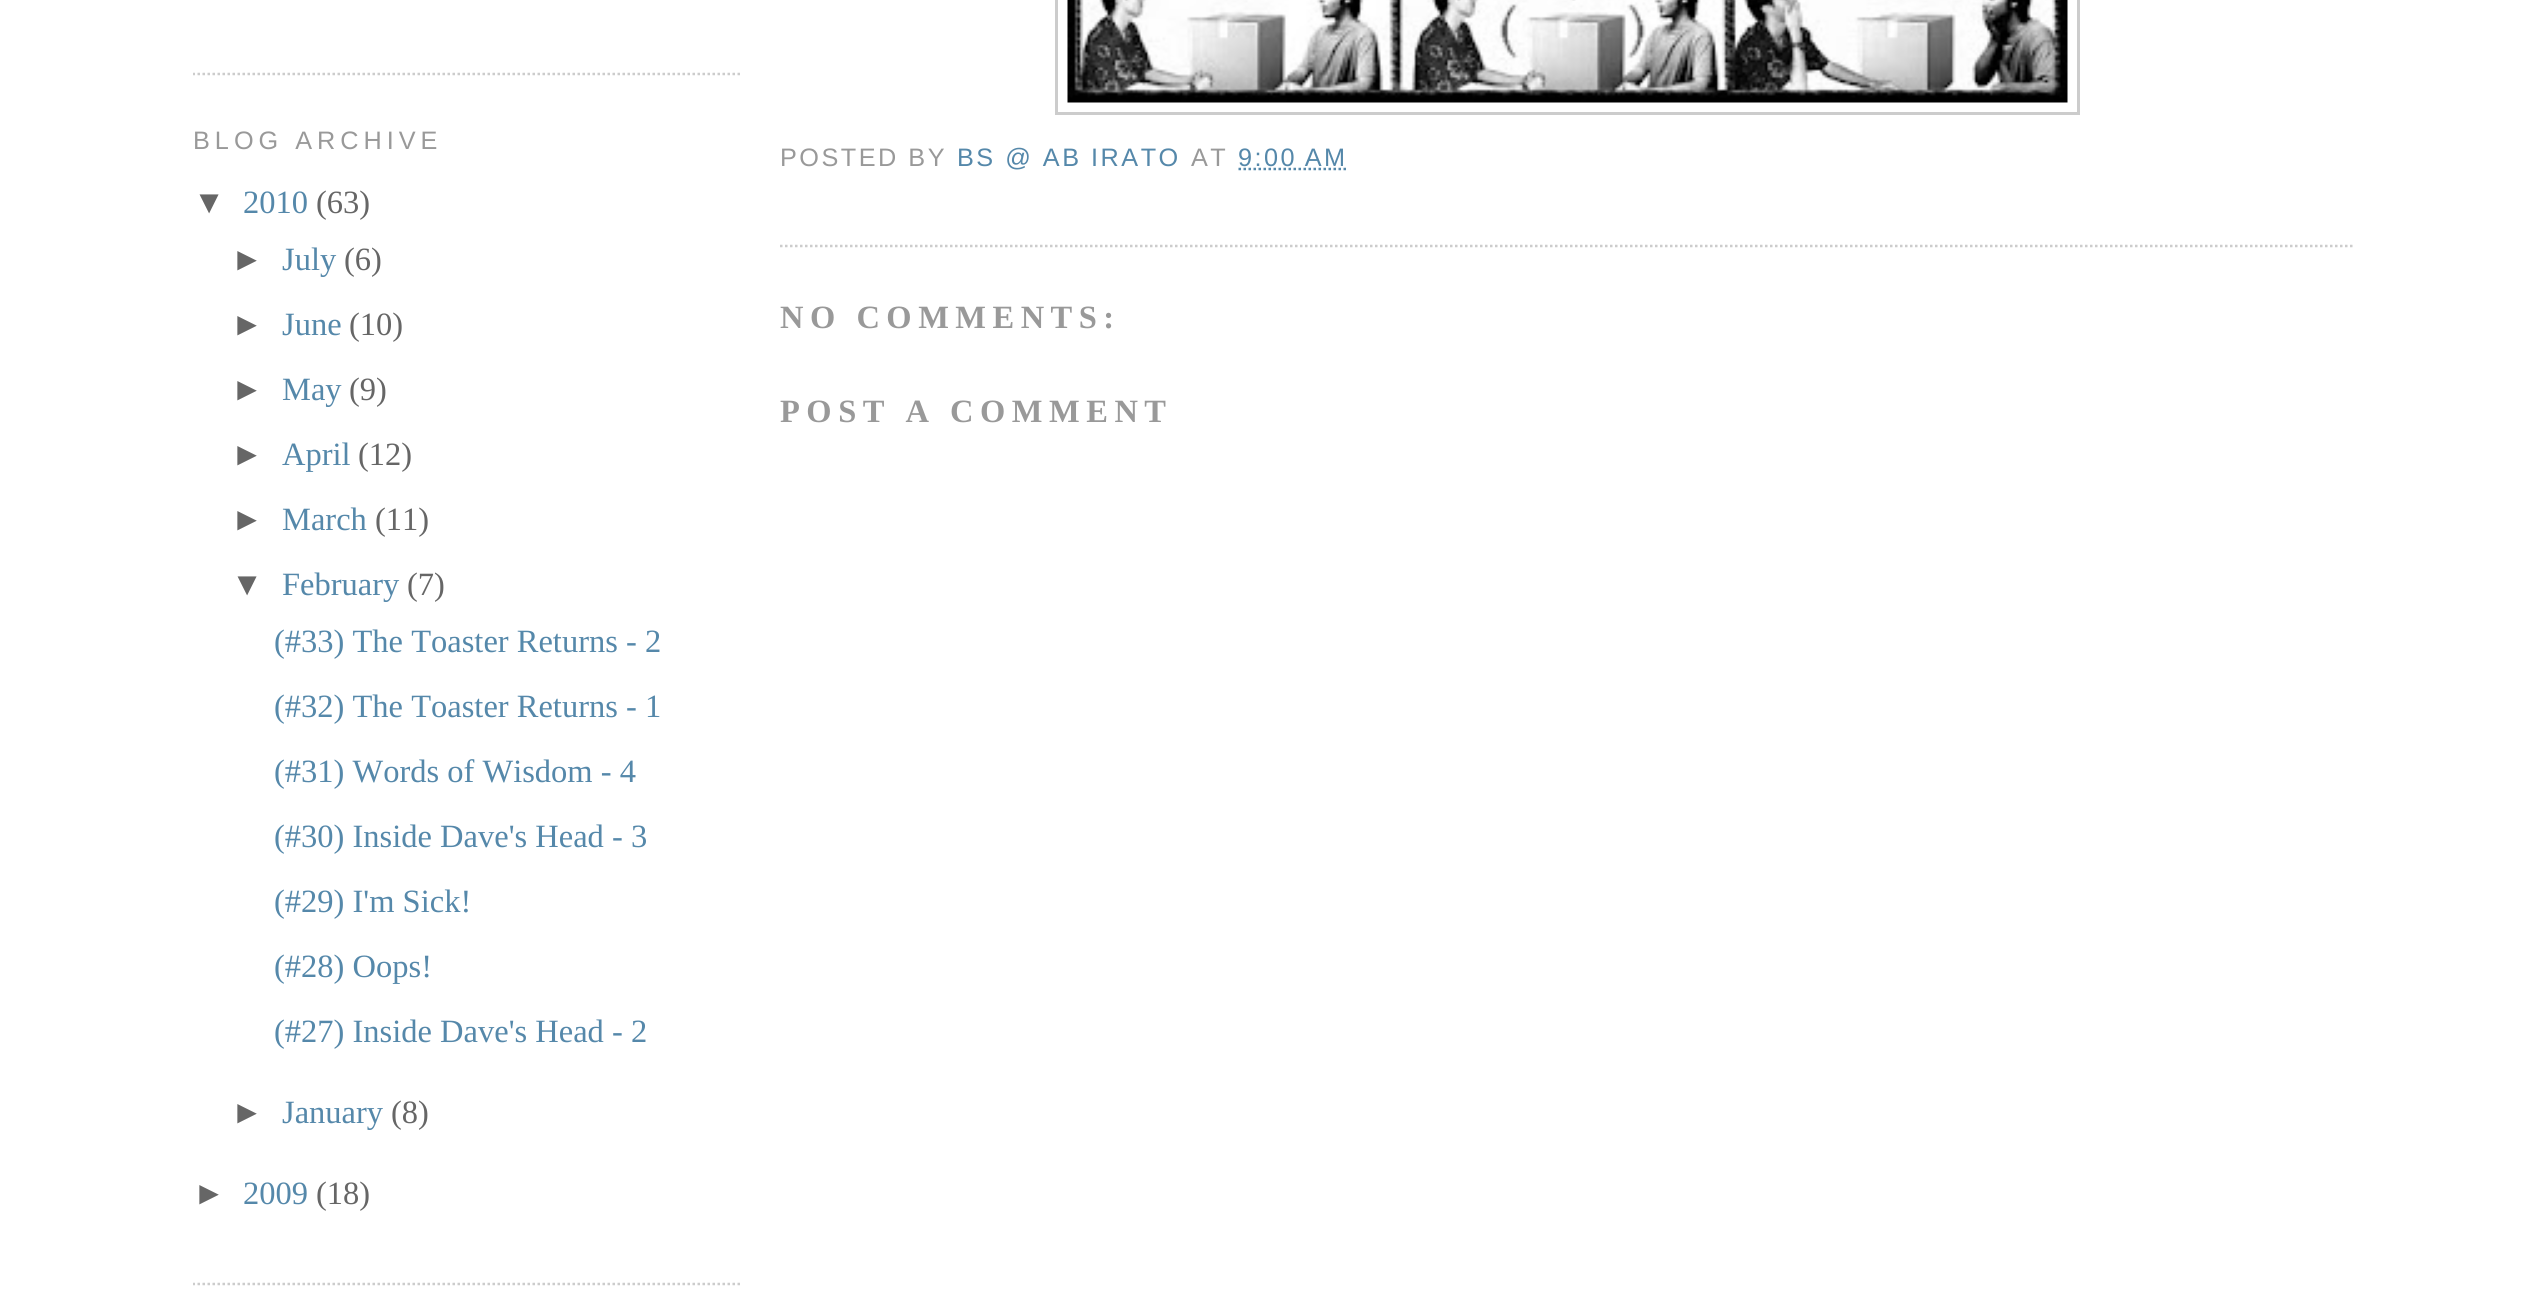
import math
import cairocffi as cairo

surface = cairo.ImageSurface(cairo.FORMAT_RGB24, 2547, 1296)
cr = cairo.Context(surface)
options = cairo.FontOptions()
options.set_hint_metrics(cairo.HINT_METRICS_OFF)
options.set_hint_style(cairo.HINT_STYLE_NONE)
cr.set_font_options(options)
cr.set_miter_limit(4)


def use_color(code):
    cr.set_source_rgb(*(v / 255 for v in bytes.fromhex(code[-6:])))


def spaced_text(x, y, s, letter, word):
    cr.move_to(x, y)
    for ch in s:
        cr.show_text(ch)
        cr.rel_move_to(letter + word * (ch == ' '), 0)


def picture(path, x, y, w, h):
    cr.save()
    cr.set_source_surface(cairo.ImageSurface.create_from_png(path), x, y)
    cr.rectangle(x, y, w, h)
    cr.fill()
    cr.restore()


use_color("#ffffff")
cr.paint()
cr.save()
cr.rectangle(193, 0, 550, 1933)
cr.clip()
cr.new_path()
cr.move_to(192.5, 74)
cr.line_to(742.5, 74)
use_color("#cccccc")
cr.set_line_width(2.5)
cr.set_dash([2.5, 2.5])
cr.stroke()
cr.new_path()
cr.move_to(192.5, 1284)
cr.line_to(742.5, 1284)
cr.stroke()
cr.restore()
cr.select_font_face("Liberation Sans")
cr.set_font_size(25.25)
use_color("#999999")
spaced_text(193, 149, "BLOG ARCHIVE", 5, 0)
cr.set_font_size(32.5)
use_color("#666666")
cr.move_to(193, 213)
cr.show_text("▼")
cr.select_font_face("Liberation Serif")
use_color("#5588aa")
cr.move_to(243, 213)
cr.show_text("2010")
use_color("#666666")
cr.move_to(316, 213)
cr.show_text("(63)")
cr.select_font_face("Liberation Sans")
cr.move_to(231, 270)
cr.show_text("►")
cr.select_font_face("Liberation Serif")
use_color("#5588aa")
cr.move_to(282, 270)
cr.show_text("July")
use_color("#666666")
cr.move_to(344, 270)
cr.show_text("(6)")
cr.select_font_face("Liberation Sans")
cr.move_to(231, 335)
cr.show_text("►")
cr.select_font_face("Liberation Serif")
use_color("#5588aa")
cr.move_to(282, 335)
cr.show_text("June")
use_color("#666666")
cr.move_to(349, 335)
cr.show_text("(10)")
cr.select_font_face("Liberation Sans")
cr.move_to(231, 400)
cr.show_text("►")
cr.select_font_face("Liberation Serif")
use_color("#5588aa")
cr.move_to(282, 400)
cr.show_text("May")
use_color("#666666")
cr.move_to(349, 400)
cr.show_text("(9)")
cr.select_font_face("Liberation Sans")
cr.move_to(231, 465)
cr.show_text("►")
cr.select_font_face("Liberation Serif")
use_color("#5588aa")
cr.move_to(282, 465)
cr.show_text("April")
use_color("#666666")
cr.move_to(358, 465)
cr.show_text("(12)")
cr.select_font_face("Liberation Sans")
cr.move_to(231, 530)
cr.show_text("►")
cr.select_font_face("Liberation Serif")
use_color("#5588aa")
cr.move_to(282, 530)
cr.show_text("March")
use_color("#666666")
cr.move_to(375, 530)
cr.show_text("(11)")
cr.select_font_face("Liberation Sans")
cr.move_to(231, 595)
cr.show_text("▼")
cr.select_font_face("Liberation Serif")
use_color("#5588aa")
cr.move_to(282, 595)
cr.show_text("February")
use_color("#666666")
cr.move_to(407, 595)
cr.show_text("(7)")
use_color("#5588aa")
cr.move_to(274, 652)
cr.show_text("(#33) The Toaster Returns - 2")
cr.move_to(274, 717)
cr.show_text("(#32) The Toaster Returns - 1")
cr.move_to(274, 782)
cr.show_text("(#31) Words of Wisdom - 4")
cr.move_to(274, 847)
cr.show_text("(#30) Inside Dave's Head - 3")
cr.move_to(274, 912)
cr.show_text("(#29) I'm Sick!")
cr.move_to(274, 977)
cr.show_text("(#28) Oops!")
cr.move_to(274, 1042)
cr.show_text("(#27) Inside Dave's Head - 2")
cr.select_font_face("Liberation Sans")
use_color("#666666")
cr.move_to(231, 1123)
cr.show_text("►")
cr.select_font_face("Liberation Serif")
use_color("#5588aa")
cr.move_to(282, 1123)
cr.show_text("January")
use_color("#666666")
cr.move_to(391, 1123)
cr.show_text("(8)")
cr.select_font_face("Liberation Sans")
cr.move_to(193, 1204)
cr.show_text("►")
cr.select_font_face("Liberation Serif")
use_color("#5588aa")
cr.move_to(243, 1204)
cr.show_text("2009")
use_color("#666666")
cr.move_to(316, 1204)
cr.show_text("(18)")
cr.new_path()
cr.move_to(780, 246)
cr.line_to(2355, 246)
use_color("#cccccc")
cr.set_line_width(2.5)
cr.set_dash([2.5, 2.5])
cr.stroke()
cr.rectangle(1056.5, -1.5, 1022, 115)
cr.set_line_width(3)
cr.set_dash([])
cr.stroke()
picture("img1.png", 1067, 0, 1001, 103)
cr.select_font_face("Liberation Sans")
cr.set_font_size(25.25)
use_color("#999999")
spaced_text(780, 166, "POSTED BY", 2.5, 0)
use_color("#5588aa")
spaced_text(957, 166, "BS @ AB IRATO", 2.5, 0)
use_color("#999999")
spaced_text(1191, 166, "AT", 2.5, 0)
use_color("#5588aa")
spaced_text(1238, 166, "9:00 AM", 2.5, 0)
cr.new_path()
cr.move_to(1238.5, 169)
cr.line_to(1348.5, 169)
cr.set_line_width(2.5)
cr.set_dash([2.5, 2.5])
cr.stroke()
cr.select_font_face("Liberation Serif", cairo.FONT_SLANT_NORMAL, cairo.FONT_WEIGHT_BOLD)
cr.set_font_size(32.5)
use_color("#999999")
spaced_text(780, 328, "NO COMMENTS:", 6.5, 0)
spaced_text(780, 422, "POST A COMMENT", 6.5, 0)
surface.write_to_png("result.png")
